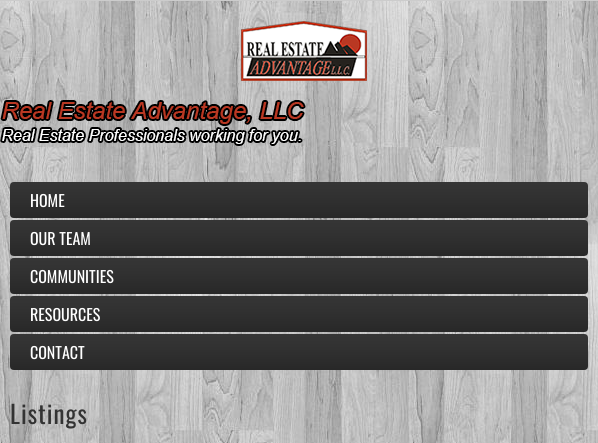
import math
import cairocffi as cairo

surface = cairo.ImageSurface(cairo.FORMAT_RGB24, 598, 443)
cr = cairo.Context(surface)
options = cairo.FontOptions()
options.set_hint_metrics(cairo.HINT_METRICS_OFF)
options.set_hint_style(cairo.HINT_STYLE_NONE)
cr.set_font_options(options)
cr.set_miter_limit(4)


def use_color(code):
    cr.set_source_rgb(*(v / 255 for v in bytes.fromhex(code[-6:])))


def spaced_text(x, y, s, letter, word):
    cr.move_to(x, y)
    for ch in s:
        cr.show_text(ch)
        cr.rel_move_to(letter + word * (ch == ' '), 0)


def picture(path, x, y, w, h):
    cr.save()
    cr.set_source_surface(cairo.ImageSurface.create_from_png(path), x, y)
    cr.rectangle(x, y, w, h)
    cr.fill()
    cr.restore()


use_color("#ffffff")
cr.paint()
picture("img1.png", 0, 1, 598, 442)
use_color("#cccccc")
cr.rectangle(0, 0, 598, 1)
cr.fill()
picture("img2.png", 241, 21, 126, 60)
picture("img3.png", 0, 100, 306, 46)
picture("img4.png", 10, 182, 578, 36)
cr.select_font_face("Oswald")
cr.set_font_size(16)
use_color("#ffffff")
cr.move_to(30, 207)
cr.show_text("HOME")
picture("img5.png", 10, 220, 578, 36)
cr.move_to(30, 245)
cr.show_text("OUR TEAM")
picture("img6.png", 10, 258, 578, 36)
cr.move_to(30, 283)
cr.show_text("COMMUNITIES")
picture("img7.png", 10, 296, 578, 36)
cr.move_to(30, 321)
cr.show_text("RESOURCES")
picture("img8.png", 10, 334, 578, 36)
cr.move_to(30, 359)
cr.show_text("CONTACT")
cr.set_font_size(25)
use_color("#333333")
spaced_text(10, 424, "Listings", 1, 0)
surface.write_to_png("result.png")
